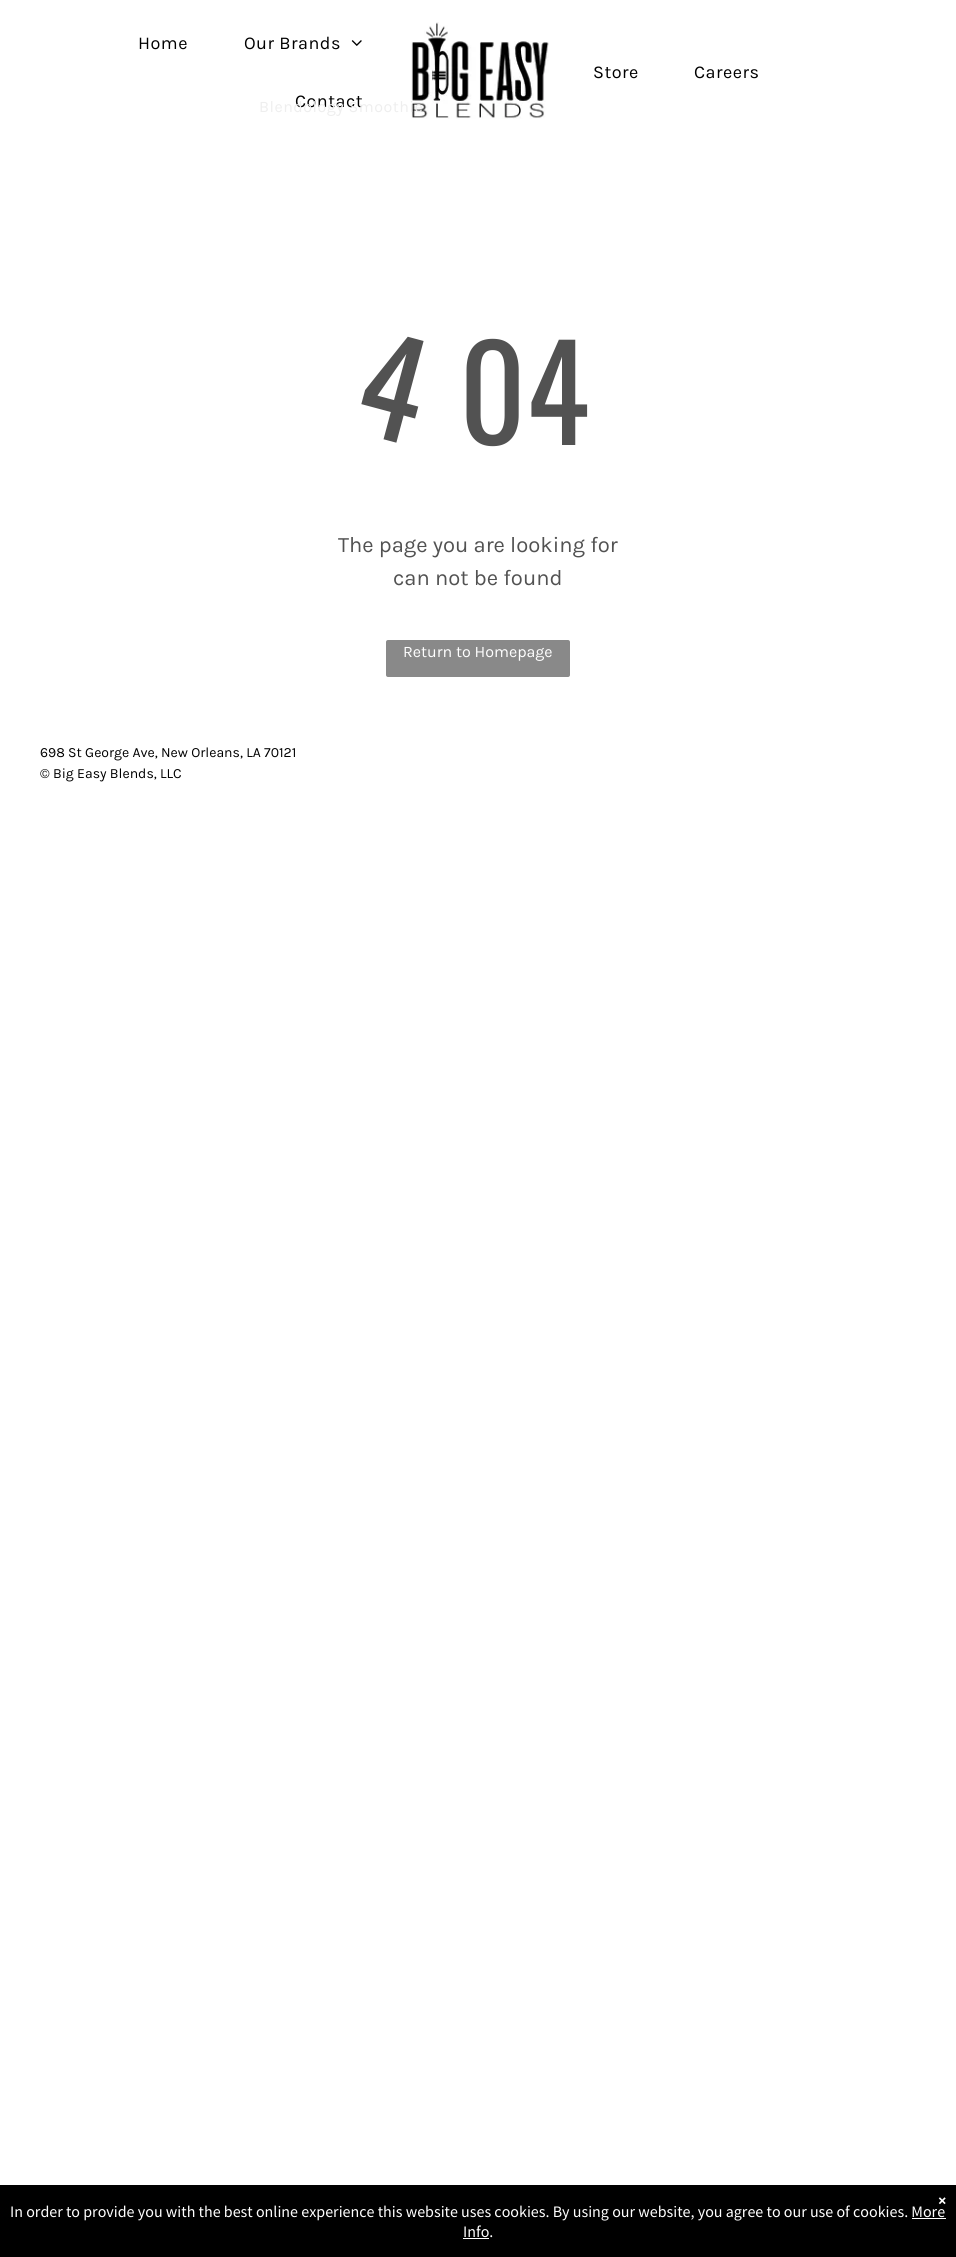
import math
import cairocffi as cairo

surface = cairo.ImageSurface(cairo.FORMAT_RGB24, 956, 2257)
cr = cairo.Context(surface)
options = cairo.FontOptions()
options.set_hint_metrics(cairo.HINT_METRICS_OFF)
options.set_hint_style(cairo.HINT_STYLE_NONE)
cr.set_font_options(options)
cr.set_miter_limit(4)


def use_color(code):
    cr.set_source_rgb(*(v / 255 for v in bytes.fromhex(code[-6:])))


def spaced_text(x, y, s, letter, word):
    cr.move_to(x, y)
    for ch in s:
        cr.show_text(ch)
        cr.rel_move_to(letter + word * (ch == ' '), 0)


def round_rect(x, y, w, h, r):
    cr.new_sub_path()
    for i, (u, v) in enumerate([(x + w - r, y + h - r), (x + r, y + h - r), (x + r, y + r), (x + w - r, y + r)]):
        cr.arc(u, v, r, i * math.pi / 2, (i + 1) * math.pi / 2)
    cr.close_path()


def picture(path, x, y, w, h):
    cr.save()
    cr.set_source_surface(cairo.ImageSurface.create_from_png(path), x, y)
    cr.rectangle(x, y, w, h)
    cr.fill()
    cr.restore()


use_color("#ffffff")
cr.paint()
cr.select_font_face("Karla")
cr.set_font_size(18)
use_color("#000000")
spaced_text(138, 49, "Home", 0.5, 0)
spaced_text(244, 49, "Our Brands", 0.5, 0)
picture("img1.png", 351, 40, 11, 6)
spaced_text(295, 107, "Contact", 0.5, 0)
picture("img2.png", 411, 22, 138, 97)
cr.set_font_size(16)
use_color("#eeeeee")
spaced_text(259, 112, "Blendology Smoothie", 0.5, 0)
cr.set_font_size(18)
use_color("#000000")
spaced_text(593, 78, "Store", 0.5, 0)
spaced_text(694, 78, "Careers", 0.5, 0)
cr.select_font_face("Oswald")
cr.set_font_size(130)
use_color("#525252")
cr.save()
cr.translate(349, 430)
cr.rotate(15 * math.pi / 180)
cr.move_to(0, 0)
cr.show_text("4")
cr.restore()
cr.move_to(459, 445)
cr.show_text("04")
cr.select_font_face("Karla")
cr.set_font_size(22)
cr.move_to(338, 552)
cr.show_text("The page you are looking for")
cr.move_to(393, 585)
cr.show_text("can not be found")
use_color("#898989")
round_rect(386, 640, 184, 37, 2)
cr.fill()
cr.set_font_size(16)
use_color("#ffffff")
cr.move_to(403, 657)
cr.show_text("Return to Homepage")
cr.set_font_size(14)
use_color("#000000")
cr.move_to(40, 757)
cr.show_text("698 St George Ave, New Orleans, LA 70121")
cr.move_to(40, 778)
cr.show_text("© Big Easy Blends, LLC")
cr.rectangle(0, 2185, 956, 72)
cr.fill()
cr.select_font_face("Source Sans Pro", cairo.FONT_SLANT_NORMAL, cairo.FONT_WEIGHT_BOLD)
cr.set_font_size(16)
use_color("#ffffff")
cr.move_to(938, 2206)
cr.show_text("×")
cr.select_font_face("Source Sans Pro")
cr.move_to(10, 2217)
cr.show_text("In order to provide you with the best online experience this website uses cookies. By using our website, you agree to our use of cookies. More")
cr.move_to(463, 2237)
cr.show_text("Info.")
cr.rectangle(912, 2218, 34, 1)
cr.fill()
cr.rectangle(463, 2238, 26, 1)
cr.fill()
surface.write_to_png("result.png")
